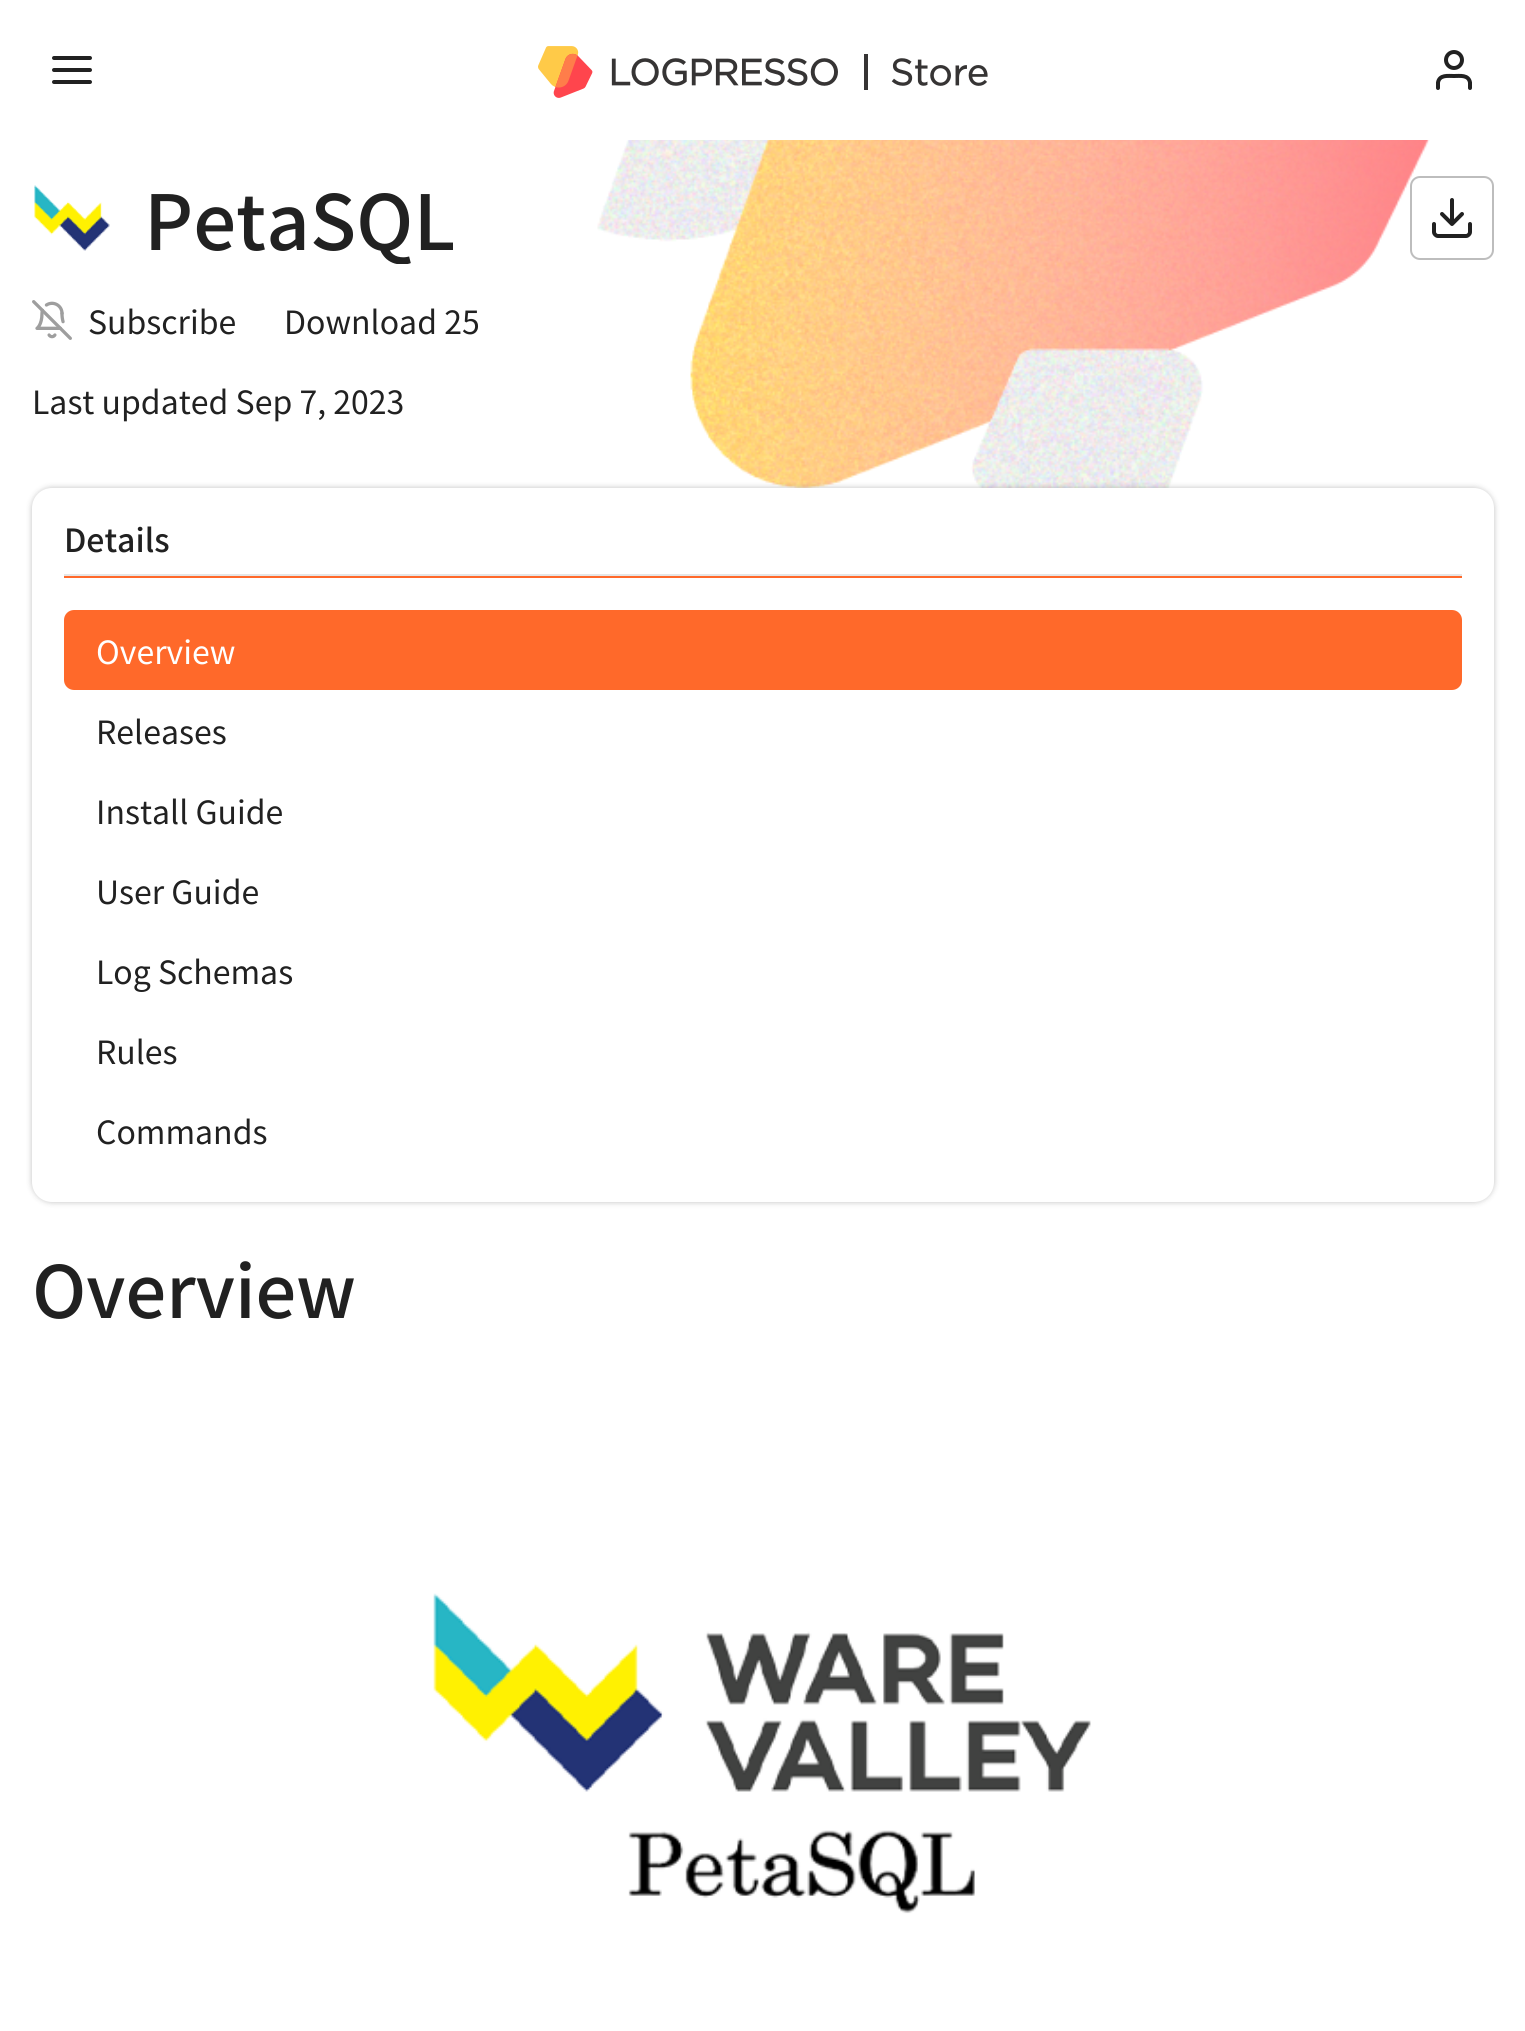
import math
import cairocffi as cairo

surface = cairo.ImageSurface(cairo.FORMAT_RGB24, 1525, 2031)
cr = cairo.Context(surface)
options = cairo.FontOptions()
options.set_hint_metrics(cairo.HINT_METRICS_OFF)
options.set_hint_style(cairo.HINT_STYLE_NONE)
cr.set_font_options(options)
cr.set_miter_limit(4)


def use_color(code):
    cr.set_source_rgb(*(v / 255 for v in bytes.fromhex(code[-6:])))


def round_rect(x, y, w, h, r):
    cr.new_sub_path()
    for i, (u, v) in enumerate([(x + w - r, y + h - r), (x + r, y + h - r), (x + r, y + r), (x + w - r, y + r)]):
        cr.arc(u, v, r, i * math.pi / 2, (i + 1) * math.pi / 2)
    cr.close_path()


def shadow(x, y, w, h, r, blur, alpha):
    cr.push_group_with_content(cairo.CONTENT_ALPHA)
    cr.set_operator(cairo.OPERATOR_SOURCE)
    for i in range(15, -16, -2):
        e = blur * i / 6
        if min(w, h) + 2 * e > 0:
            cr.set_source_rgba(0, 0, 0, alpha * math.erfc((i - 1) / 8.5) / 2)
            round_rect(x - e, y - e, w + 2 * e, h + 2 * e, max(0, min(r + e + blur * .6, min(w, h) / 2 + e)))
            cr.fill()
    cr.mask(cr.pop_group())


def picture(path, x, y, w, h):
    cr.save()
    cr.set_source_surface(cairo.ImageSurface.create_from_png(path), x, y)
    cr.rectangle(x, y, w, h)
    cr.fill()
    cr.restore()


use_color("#ffffff")
cr.paint()
picture("img1.png", 597, 140, 833, 348)
cr.new_path()
cr.move_to(54, 70)
cr.line_to(90, 70)
cr.move_to(54, 58)
cr.line_to(90, 58)
cr.move_to(54, 82)
cr.line_to(90, 82)
use_color("#212121")
cr.set_line_width(4)
cr.set_line_cap(cairo.LINE_CAP_ROUND)
cr.set_line_join(cairo.LINE_JOIN_ROUND)
cr.stroke()
picture("img2.png", 538, 46, 300, 52)
picture("img3.png", 864, 54, 124, 36)
cr.new_path()
cr.move_to(1470, 88)
cr.line_to(1470, 82.5)
cr.curve_to(1468.5, 74.5, 1460, 76, 1454, 76)
cr.curve_to(1448, 76, 1439.5, 74.5, 1438, 82.5)
cr.line_to(1438, 88)
cr.stroke()
cr.arc(1454, 60, 8, 0, 2 * math.pi)
cr.set_line_cap(cairo.LINE_CAP_BUTT)
cr.set_line_join(cairo.LINE_JOIN_MITER)
cr.stroke()
picture("img4.png", 34, 185, 76, 66)
cr.save()
cr.rectangle(144, 172, 312, 92)
cr.clip()
cr.select_font_face("Noto Sans KR Medium")
cr.set_font_size(76)
cr.move_to(144, 250)
cr.show_text("PetaSQL")
cr.restore()
round_rect(1411, 177, 82, 82, 9)
use_color("#bdbdbd")
cr.set_line_width(2)
cr.stroke()
cr.new_path()
cr.move_to(1470, 224)
cr.line_to(1470, 232)
cr.curve_to(1470, 234, 1468, 236, 1466, 236)
cr.line_to(1438, 236)
cr.curve_to(1436, 236, 1434, 234, 1434, 232)
cr.line_to(1434, 224)
cr.move_to(1442, 214)
cr.line_to(1452, 224)
cr.line_to(1462, 214)
cr.move_to(1452, 224)
cr.line_to(1452, 200)
use_color("#212121")
cr.set_line_width(4)
cr.set_line_cap(cairo.LINE_CAP_ROUND)
cr.set_line_join(cairo.LINE_JOIN_ROUND)
cr.stroke()
picture("img5.png", 32, 300, 40, 40)
cr.select_font_face("Noto Sans KR")
cr.set_font_size(32)
cr.move_to(88, 334)
cr.show_text("Subscribe")
cr.move_to(284, 334)
cr.show_text("Download 25")
cr.move_to(32, 414)
cr.show_text("Last updated Sep 7, 2023")
use_color("#000000")
shadow(32, 488, 1462, 714, 20, 3, 0.25)
use_color("#ffffff")
round_rect(32, 488, 1462, 714, 20)
cr.fill()
cr.select_font_face("Noto Sans KR Medium")
use_color("#212121")
cr.move_to(64, 552)
cr.show_text("Details")
use_color("#e6e6e6")
cr.rectangle(64, 574, 1398, 2)
cr.fill()
use_color("#ff692a")
cr.rectangle(64, 576, 1398, 2)
cr.fill()
round_rect(64, 610, 1398, 80, 10)
cr.fill()
cr.select_font_face("Noto Sans KR")
use_color("#ffffff")
cr.move_to(96, 664)
cr.show_text("Overview")
use_color("#212121")
cr.move_to(96, 744)
cr.show_text("Releases")
cr.move_to(96, 824)
cr.show_text("Install Guide")
cr.move_to(96, 904)
cr.show_text("User Guide")
cr.move_to(96, 984)
cr.show_text("Log Schemas")
cr.move_to(96, 1064)
cr.show_text("Rules")
cr.move_to(96, 1144)
cr.show_text("Commands")
cr.select_font_face("Noto Sans KR Medium")
cr.set_font_size(72)
cr.move_to(32, 1318)
cr.show_text("Overview")
picture("img6.png", 433, 1593, 658, 321)
surface.write_to_png("result.png")
